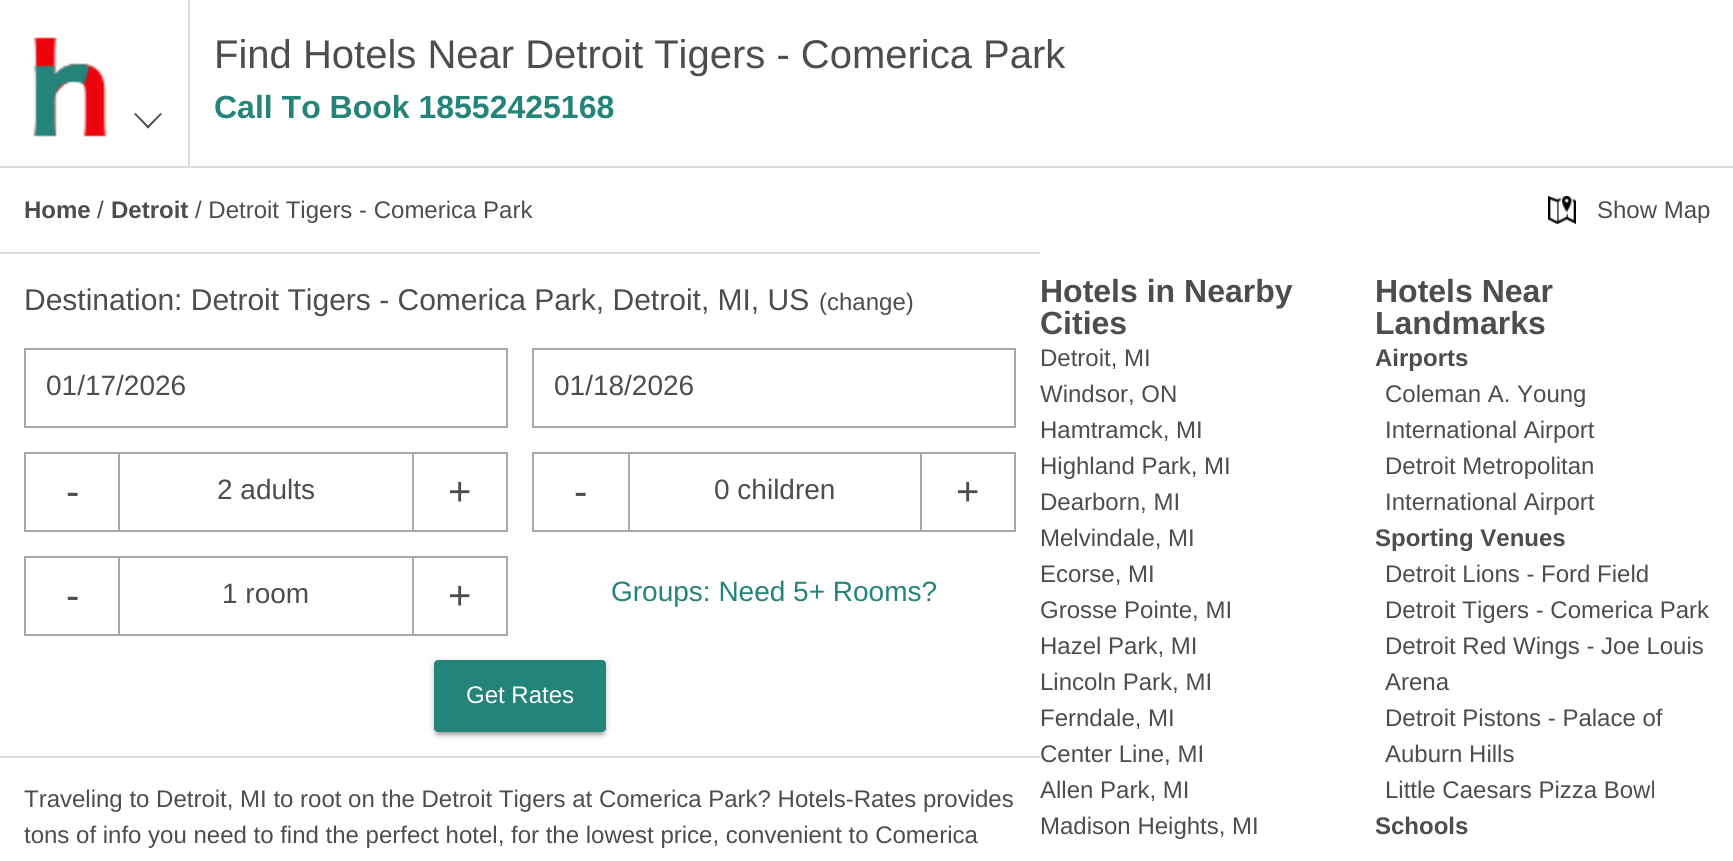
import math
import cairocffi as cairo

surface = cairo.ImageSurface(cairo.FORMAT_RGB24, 1733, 861)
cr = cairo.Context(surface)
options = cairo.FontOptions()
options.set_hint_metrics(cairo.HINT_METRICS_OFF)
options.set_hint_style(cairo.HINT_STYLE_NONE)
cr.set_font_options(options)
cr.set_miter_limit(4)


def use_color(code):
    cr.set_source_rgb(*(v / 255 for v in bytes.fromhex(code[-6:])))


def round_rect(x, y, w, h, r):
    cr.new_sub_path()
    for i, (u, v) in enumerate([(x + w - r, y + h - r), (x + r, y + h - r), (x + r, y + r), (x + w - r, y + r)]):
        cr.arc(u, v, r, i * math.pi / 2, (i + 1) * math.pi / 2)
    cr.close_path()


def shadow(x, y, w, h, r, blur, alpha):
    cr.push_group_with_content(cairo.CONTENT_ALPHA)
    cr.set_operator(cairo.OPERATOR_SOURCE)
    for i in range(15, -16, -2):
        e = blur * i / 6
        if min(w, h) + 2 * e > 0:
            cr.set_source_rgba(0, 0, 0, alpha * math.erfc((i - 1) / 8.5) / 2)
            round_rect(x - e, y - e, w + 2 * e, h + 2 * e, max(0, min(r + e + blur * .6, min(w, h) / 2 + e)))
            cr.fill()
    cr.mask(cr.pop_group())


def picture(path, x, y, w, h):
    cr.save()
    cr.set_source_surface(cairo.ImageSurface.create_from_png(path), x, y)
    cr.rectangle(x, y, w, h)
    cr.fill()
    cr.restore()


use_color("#ffffff")
cr.paint()
use_color("#dddddd")
cr.rectangle(0, 166, 1733, 2)
cr.fill()
cr.rectangle(188, 0, 2, 166)
cr.fill()
picture("img1.png", 33, 37, 74, 100)
use_color("#4d4d4d")
cr.new_path()
cr.move_to(162, 114)
cr.line_to(148, 128.5)
cr.line_to(146.5, 127)
cr.line_to(160.5, 113)
cr.close_path()
cr.fill()
cr.new_path()
cr.move_to(149.5, 127)
cr.line_to(148, 128.5)
cr.line_to(134, 114)
cr.line_to(135.5, 113)
cr.close_path()
cr.fill()
cr.select_font_face("Liberation Sans")
cr.set_font_size(40)
cr.move_to(214, 68)
cr.show_text("Find Hotels Near Detroit Tigers - Comerica Park")
cr.select_font_face("Liberation Sans", cairo.FONT_SLANT_NORMAL, cairo.FONT_WEIGHT_BOLD)
cr.set_font_size(32)
use_color("#24847a")
cr.move_to(214, 118)
cr.show_text("Call To Book 18552425168")
use_color("#dddddd")
cr.rectangle(0, 252, 1040, 2)
cr.fill()
cr.set_font_size(24)
use_color("#4d4d4d")
cr.move_to(24, 218)
cr.show_text("Home")
cr.select_font_face("Liberation Sans")
cr.move_to(97, 218)
cr.show_text("/")
cr.select_font_face("Liberation Sans", cairo.FONT_SLANT_NORMAL, cairo.FONT_WEIGHT_BOLD)
cr.move_to(111, 218)
cr.show_text("Detroit")
cr.select_font_face("Liberation Sans")
cr.move_to(195, 218)
cr.show_text("/ Detroit Tigers - Comerica Park")
use_color("#dddddd")
cr.rectangle(0, 756, 1040, 2)
cr.fill()
cr.set_font_size(30)
use_color("#4d4d4d")
cr.move_to(24, 310)
cr.show_text("Destination: Detroit Tigers - Comerica Park, Detroit, MI, US")
cr.set_font_size(24)
cr.move_to(819, 310)
cr.show_text("(change)")
cr.rectangle(25, 349, 482, 78)
use_color("#aaaaaa")
cr.stroke()
cr.set_font_size(28)
use_color("#4d4d4d")
cr.move_to(46, 395)
cr.show_text("01/17/2026")
cr.rectangle(533, 349, 482, 78)
use_color("#aaaaaa")
cr.stroke()
use_color("#4d4d4d")
cr.move_to(554, 395)
cr.show_text("01/18/2026")
cr.rectangle(25, 453, 94, 78)
use_color("#aaaaaa")
cr.stroke()
cr.set_font_size(40)
use_color("#4d4d4d")
cr.move_to(66, 505)
cr.show_text("-")
use_color("#aaaaaa")
cr.rectangle(120, 452, 292, 2)
cr.fill()
cr.rectangle(120, 530, 292, 2)
cr.fill()
cr.set_font_size(28)
use_color("#4d4d4d")
cr.move_to(217, 499)
cr.show_text("2 adults")
cr.rectangle(413, 453, 94, 78)
use_color("#aaaaaa")
cr.stroke()
cr.set_font_size(40)
use_color("#4d4d4d")
cr.move_to(448, 505)
cr.show_text("+")
cr.rectangle(533, 453, 96, 78)
use_color("#aaaaaa")
cr.stroke()
use_color("#4d4d4d")
cr.move_to(574, 505)
cr.show_text("-")
use_color("#aaaaaa")
cr.rectangle(630, 452, 290, 2)
cr.fill()
cr.rectangle(630, 530, 290, 2)
cr.fill()
cr.set_font_size(28)
use_color("#4d4d4d")
cr.move_to(714, 499)
cr.show_text("0 children")
cr.rectangle(921, 453, 94, 78)
use_color("#aaaaaa")
cr.stroke()
cr.set_font_size(40)
use_color("#4d4d4d")
cr.move_to(956, 505)
cr.show_text("+")
cr.rectangle(25, 557, 94, 78)
use_color("#aaaaaa")
cr.stroke()
use_color("#4d4d4d")
cr.move_to(66, 609)
cr.show_text("-")
use_color("#aaaaaa")
cr.rectangle(120, 556, 292, 2)
cr.fill()
cr.rectangle(120, 634, 292, 2)
cr.fill()
cr.set_font_size(28)
use_color("#4d4d4d")
cr.move_to(222, 603)
cr.show_text("1 room")
cr.rectangle(413, 557, 94, 78)
use_color("#aaaaaa")
cr.stroke()
cr.set_font_size(40)
use_color("#4d4d4d")
cr.move_to(448, 609)
cr.show_text("+")
cr.set_font_size(28)
use_color("#24847a")
cr.move_to(611, 601)
cr.show_text("Groups: Need 5+ Rooms?")
use_color("#000000")
shadow(434, 662, 172, 72, 4, 5, 0.12)
shadow(438, 670, 164, 64, 0, 1, 0.2)
shadow(434, 664, 172, 72, 4, 2, 0.14)
use_color("#24847a")
round_rect(434, 660, 172, 72, 4)
cr.fill()
cr.set_font_size(24)
use_color("#ffffff")
cr.move_to(466, 703)
cr.show_text("Get Rates")
use_color("#4d4d4d")
cr.move_to(24, 807)
cr.show_text("Traveling to Detroit, MI to root on the Detroit Tigers at Comerica Park? Hotels-Rates provides")
cr.move_to(24, 843)
cr.show_text("tons of info you need to find the perfect hotel, for the lowest price, convenient to Comerica")
picture("img2.png", 1548, 196, 28, 28)
cr.move_to(1597, 218)
cr.show_text("Show Map")
cr.select_font_face("Liberation Sans", cairo.FONT_SLANT_NORMAL, cairo.FONT_WEIGHT_BOLD)
cr.set_font_size(32)
cr.move_to(1040, 302)
cr.show_text("Hotels in Nearby")
cr.move_to(1040, 334)
cr.show_text("Cities")
cr.select_font_face("Liberation Sans")
cr.set_font_size(24)
cr.move_to(1040, 366)
cr.show_text("Detroit, MI")
cr.move_to(1040, 402)
cr.show_text("Windsor, ON")
cr.move_to(1040, 438)
cr.show_text("Hamtramck, MI")
cr.move_to(1040, 474)
cr.show_text("Highland Park, MI")
cr.move_to(1040, 510)
cr.show_text("Dearborn, MI")
cr.move_to(1040, 546)
cr.show_text("Melvindale, MI")
cr.move_to(1040, 582)
cr.show_text("Ecorse, MI")
cr.move_to(1040, 618)
cr.show_text("Grosse Pointe, MI")
cr.move_to(1040, 654)
cr.show_text("Hazel Park, MI")
cr.move_to(1040, 690)
cr.show_text("Lincoln Park, MI")
cr.move_to(1040, 726)
cr.show_text("Ferndale, MI")
cr.move_to(1040, 762)
cr.show_text("Center Line, MI")
cr.move_to(1040, 798)
cr.show_text("Allen Park, MI")
cr.move_to(1040, 834)
cr.show_text("Madison Heights, MI")
cr.select_font_face("Liberation Sans", cairo.FONT_SLANT_NORMAL, cairo.FONT_WEIGHT_BOLD)
cr.set_font_size(32)
cr.move_to(1375, 302)
cr.show_text("Hotels Near")
cr.move_to(1375, 334)
cr.show_text("Landmarks")
cr.set_font_size(24)
cr.move_to(1375, 366)
cr.show_text("Airports")
cr.select_font_face("Liberation Sans")
cr.move_to(1385, 402)
cr.show_text("Coleman A. Young")
cr.move_to(1385, 438)
cr.show_text("International Airport")
cr.move_to(1385, 474)
cr.show_text("Detroit Metropolitan")
cr.move_to(1385, 510)
cr.show_text("International Airport")
cr.select_font_face("Liberation Sans", cairo.FONT_SLANT_NORMAL, cairo.FONT_WEIGHT_BOLD)
cr.move_to(1375, 546)
cr.show_text("Sporting Venues")
cr.select_font_face("Liberation Sans")
cr.move_to(1385, 582)
cr.show_text("Detroit Lions - Ford Field")
cr.move_to(1385, 618)
cr.show_text("Detroit Tigers - Comerica Park")
cr.move_to(1385, 654)
cr.show_text("Detroit Red Wings - Joe Louis")
cr.move_to(1385, 690)
cr.show_text("Arena")
cr.move_to(1385, 726)
cr.show_text("Detroit Pistons - Palace of")
cr.move_to(1385, 762)
cr.show_text("Auburn Hills")
cr.move_to(1385, 798)
cr.show_text("Little Caesars Pizza Bowl")
cr.select_font_face("Liberation Sans", cairo.FONT_SLANT_NORMAL, cairo.FONT_WEIGHT_BOLD)
cr.move_to(1375, 834)
cr.show_text("Schools")
surface.write_to_png("result.png")
